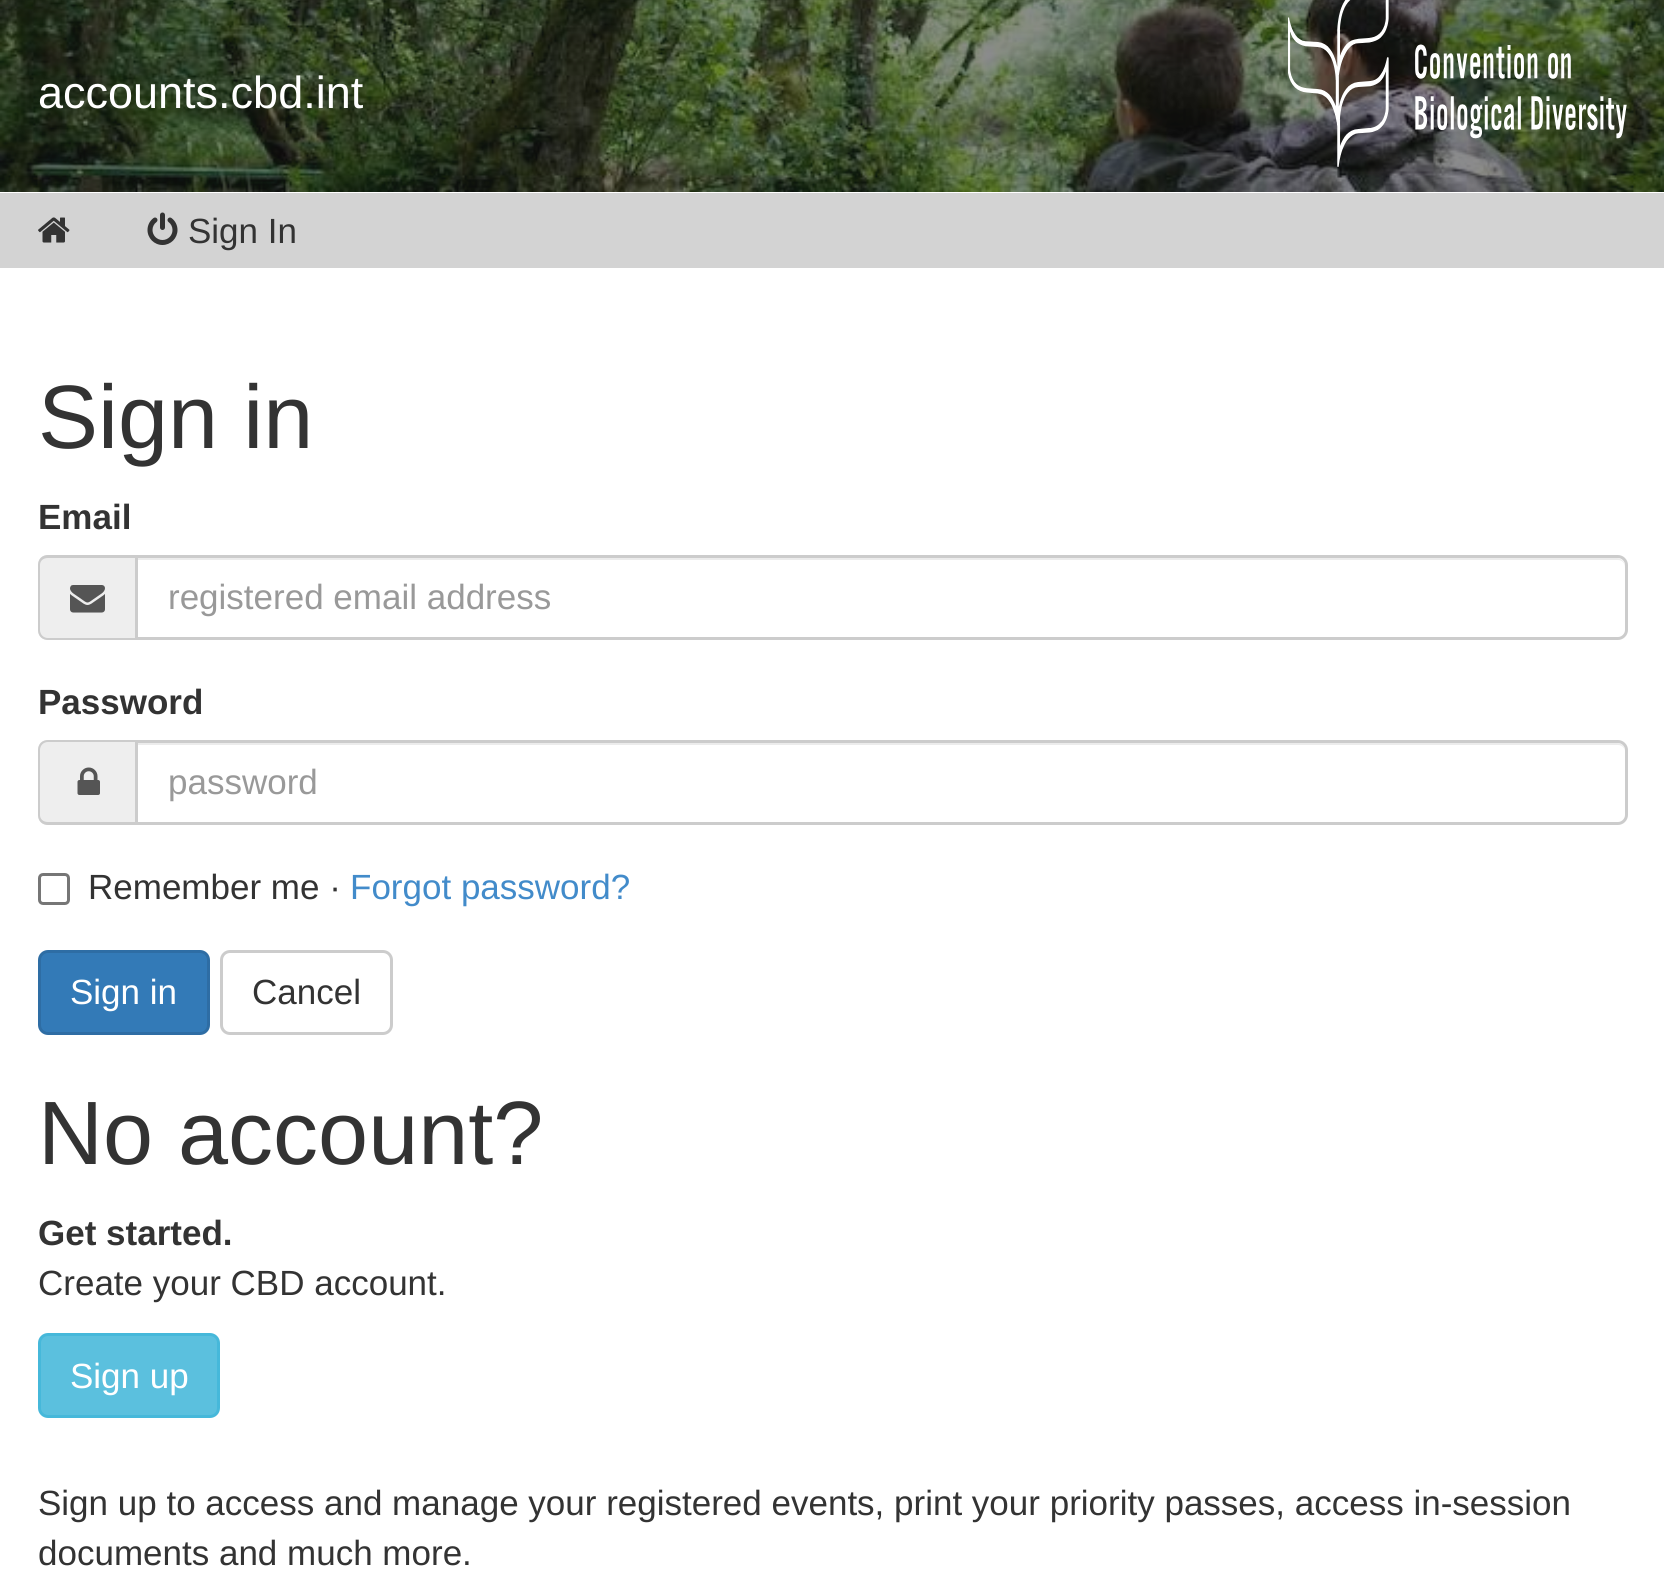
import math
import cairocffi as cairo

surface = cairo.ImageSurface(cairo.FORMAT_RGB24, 1664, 1572)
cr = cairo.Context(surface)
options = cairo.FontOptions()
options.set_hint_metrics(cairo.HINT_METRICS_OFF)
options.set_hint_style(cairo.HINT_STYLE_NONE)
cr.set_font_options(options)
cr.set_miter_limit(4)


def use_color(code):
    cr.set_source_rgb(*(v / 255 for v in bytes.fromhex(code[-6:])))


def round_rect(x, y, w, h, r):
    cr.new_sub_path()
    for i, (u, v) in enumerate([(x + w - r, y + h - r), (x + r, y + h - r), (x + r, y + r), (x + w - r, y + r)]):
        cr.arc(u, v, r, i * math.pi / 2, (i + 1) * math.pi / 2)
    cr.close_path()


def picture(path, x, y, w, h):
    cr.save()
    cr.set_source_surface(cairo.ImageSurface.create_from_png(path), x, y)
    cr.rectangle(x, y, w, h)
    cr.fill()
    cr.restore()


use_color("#ffffff")
cr.paint()
picture("img1.png", 0, 0, 1664, 192)
cr.select_font_face("Liberation Sans")
cr.set_font_size(45)
use_color("#ffffff")
cr.move_to(38, 108)
cr.show_text("accounts.cbd.int")
picture("img2.png", 1288, 0, 339, 167)
use_color("#d3d3d3")
cr.rectangle(0, 193, 1664, 75)
cr.fill()
picture("img3.png", 38, 217, 32, 26)
picture("img4.png", 147, 212, 31, 33)
cr.set_font_size(35)
use_color("#333333")
cr.move_to(188, 243)
cr.show_text("Sign In")
cr.set_font_size(90)
cr.move_to(38, 448)
cr.show_text("Sign in")
cr.select_font_face("Liberation Sans", cairo.FONT_SLANT_NORMAL, cairo.FONT_WEIGHT_BOLD)
cr.set_font_size(35)
cr.move_to(38, 529)
cr.show_text("Email")
use_color("#eeeeee")
cr.new_path()
cr.move_to(48, 555)
cr.line_to(135, 555)
cr.line_to(135, 640)
cr.line_to(48, 640)
cr.curve_to(42.5, 640, 38, 635.5, 38, 630)
cr.line_to(38, 565)
cr.curve_to(38, 559.5, 42.5, 555, 48, 555)
cr.close_path()
cr.fill()
use_color("#cccccc")
cr.set_fill_rule(cairo.FILL_RULE_EVEN_ODD)
cr.new_path()
cr.move_to(48, 555)
cr.line_to(135, 555)
cr.line_to(135, 640)
cr.line_to(48, 640)
cr.curve_to(42, 640, 38, 636, 38, 630)
cr.line_to(38, 565)
cr.curve_to(38, 559, 42, 555, 48, 555)
cr.close_path()
cr.move_to(48, 558)
cr.line_to(135, 558)
cr.line_to(135, 638)
cr.line_to(48, 638)
cr.curve_to(43, 638, 40, 634, 40, 630)
cr.line_to(40, 565)
cr.curve_to(40, 561, 43, 558, 48, 558)
cr.close_path()
cr.fill()
picture("img5.png", 70, 585, 35, 28)
use_color("#ececec")
cr.set_fill_rule(cairo.FILL_RULE_WINDING)
cr.new_path()
cr.move_to(138, 560)
cr.line_to(1618, 560)
cr.curve_to(1622, 560, 1625, 563, 1625, 568)
cr.line_to(1625, 566)
cr.curve_to(1625, 562, 1621, 558, 1617, 558)
cr.line_to(138, 558)
cr.close_path()
cr.fill()
cr.new_path()
cr.move_to(136.5, 556.5)
cr.line_to(1618, 556.5)
cr.curve_to(1622.5, 556.5, 1626.5, 560.5, 1626.5, 565)
cr.line_to(1626.5, 630)
cr.curve_to(1626.5, 634.5, 1622.5, 638.5, 1618, 638.5)
cr.line_to(136.5, 638.5)
cr.close_path()
use_color("#cccccc")
cr.set_line_width(3)
cr.stroke()
cr.select_font_face("Liberation Sans")
use_color("#999999")
cr.move_to(168, 609)
cr.show_text("registered email address")
cr.select_font_face("Liberation Sans", cairo.FONT_SLANT_NORMAL, cairo.FONT_WEIGHT_BOLD)
use_color("#333333")
cr.move_to(38, 714)
cr.show_text("Password")
use_color("#eeeeee")
cr.new_path()
cr.move_to(48, 740)
cr.line_to(135, 740)
cr.line_to(135, 825)
cr.line_to(48, 825)
cr.curve_to(42.5, 825, 38, 820.5, 38, 815)
cr.line_to(38, 750)
cr.curve_to(38, 744.5, 42.5, 740, 48, 740)
cr.close_path()
cr.fill()
use_color("#cccccc")
cr.set_fill_rule(cairo.FILL_RULE_EVEN_ODD)
cr.new_path()
cr.move_to(48, 740)
cr.line_to(135, 740)
cr.line_to(135, 825)
cr.line_to(48, 825)
cr.curve_to(42, 825, 38, 821, 38, 815)
cr.line_to(38, 750)
cr.curve_to(38, 744, 42, 740, 48, 740)
cr.close_path()
cr.move_to(48, 742)
cr.line_to(135, 742)
cr.line_to(135, 822)
cr.line_to(48, 822)
cr.curve_to(43, 822, 40, 819, 40, 815)
cr.line_to(40, 750)
cr.curve_to(40, 746, 43, 742, 48, 742)
cr.close_path()
cr.fill()
picture("img6.png", 77, 767, 23, 28)
use_color("#ececec")
cr.set_fill_rule(cairo.FILL_RULE_WINDING)
cr.new_path()
cr.move_to(138, 745)
cr.line_to(1618, 745)
cr.curve_to(1622, 745, 1625, 748, 1625, 752)
cr.curve_to(1625, 747, 1622, 743, 1617, 743)
cr.line_to(138, 743)
cr.close_path()
cr.fill()
cr.new_path()
cr.move_to(136.5, 741.5)
cr.line_to(1618, 741.5)
cr.curve_to(1622.5, 741.5, 1626.5, 745.5, 1626.5, 750)
cr.line_to(1626.5, 815)
cr.curve_to(1626.5, 819.5, 1622.5, 823.5, 1618, 823.5)
cr.line_to(136.5, 823.5)
cr.close_path()
use_color("#cccccc")
cr.stroke()
cr.select_font_face("Liberation Sans")
use_color("#999999")
cr.move_to(168, 794)
cr.show_text("password")
round_rect(39.5, 874.5, 29, 29, 3.5)
use_color("#767676")
cr.stroke()
use_color("#333333")
cr.move_to(88, 899)
cr.show_text("Remember me ·")
use_color("#428bca")
cr.move_to(350, 899)
cr.show_text("Forgot password?")
use_color("#337ab7")
round_rect(39.5, 951.5, 169, 82, 8.5)
cr.fill_preserve()
use_color("#2e6da4")
cr.stroke()
use_color("#ffffff")
cr.move_to(70, 1004)
cr.show_text("Sign in")
round_rect(221.5, 951.5, 170, 82, 8.5)
use_color("#cccccc")
cr.stroke()
use_color("#333333")
cr.move_to(252, 1004)
cr.show_text("Cancel")
cr.set_font_size(90)
cr.move_to(38, 1164)
cr.show_text("No account?")
cr.select_font_face("Liberation Sans", cairo.FONT_SLANT_NORMAL, cairo.FONT_WEIGHT_BOLD)
cr.set_font_size(35)
cr.move_to(38, 1245)
cr.show_text("Get started.")
cr.select_font_face("Liberation Sans")
cr.move_to(38, 1295)
cr.show_text("Create your CBD account.")
use_color("#5bc0de")
round_rect(39.5, 1334.5, 179, 82, 8.5)
cr.fill_preserve()
use_color("#46b8da")
cr.stroke()
use_color("#ffffff")
cr.move_to(70, 1388)
cr.show_text("Sign up")
use_color("#333333")
cr.move_to(38, 1515)
cr.show_text("Sign up to access and manage your registered events, print your priority passes, access in-session")
cr.move_to(38, 1565)
cr.show_text("documents and much more.")
surface.write_to_png("result.png")
